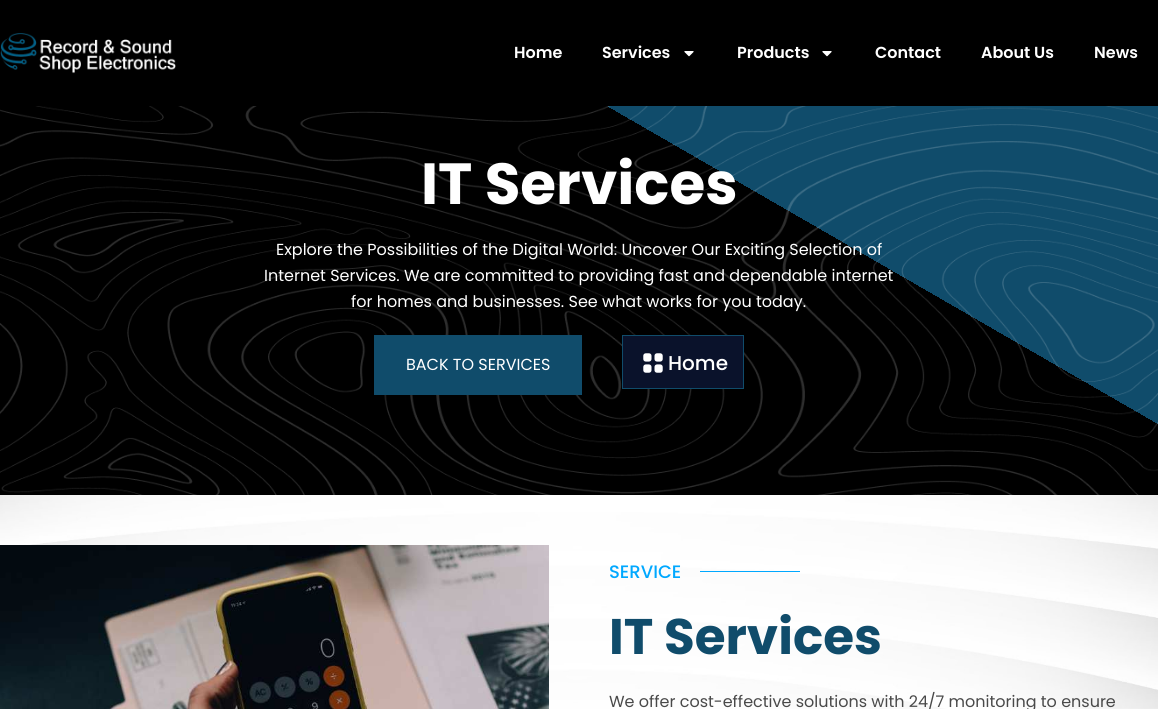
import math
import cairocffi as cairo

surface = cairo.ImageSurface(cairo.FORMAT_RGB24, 1158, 709)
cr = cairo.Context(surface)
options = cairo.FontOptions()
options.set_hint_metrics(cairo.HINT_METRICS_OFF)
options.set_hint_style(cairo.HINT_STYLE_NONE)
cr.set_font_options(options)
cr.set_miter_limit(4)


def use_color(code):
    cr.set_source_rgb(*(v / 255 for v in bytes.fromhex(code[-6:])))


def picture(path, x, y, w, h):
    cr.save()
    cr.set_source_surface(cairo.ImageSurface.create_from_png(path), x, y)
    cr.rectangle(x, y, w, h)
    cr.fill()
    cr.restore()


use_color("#ffffff")
cr.paint()
picture("img1.png", 0, 495, 1158, 214)
use_color("#000000")
cr.rectangle(0, 0, 1158, 106)
cr.fill()
picture("img2.png", 0, 33, 176, 41)
cr.select_font_face("Poppins SemiBold")
cr.set_font_size(16)
use_color("#ffffff")
cr.move_to(514, 58)
cr.show_text("Home")
cr.move_to(602, 58)
cr.show_text("Services")
picture("img3.png", 684, 51, 10, 6)
cr.move_to(737, 58)
cr.show_text("Products")
picture("img3.png", 822, 51, 10, 6)
cr.move_to(875, 58)
cr.show_text("Contact")
cr.move_to(981, 58)
cr.show_text("About Us")
cr.move_to(1094, 58)
cr.show_text("News")
gradient = cairo.LinearGradient(837, -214, 321, 680)
gradient.add_color_stop_rgba(0.38, 0.063, 0.298, 0.42, 1)
gradient.add_color_stop_rgba(0.38, 0, 0, 0, 1)
cr.set_source(gradient)
cr.rectangle(0, 106, 1158, 389)
cr.fill()
picture("img4.png", 0, 106, 1158, 389)
cr.select_font_face("Poppins", cairo.FONT_SLANT_NORMAL, cairo.FONT_WEIGHT_BOLD)
cr.set_font_size(58)
use_color("#ffffff")
cr.move_to(421, 204)
cr.show_text("IT Services")
cr.select_font_face("Poppins")
cr.set_font_size(16)
cr.move_to(276, 255)
cr.show_text("Explore the Possibilities of the Digital World: Uncover Our Exciting Selection of")
cr.move_to(264, 281)
cr.show_text("Internet Services. We are committed to providing fast and dependable internet")
cr.move_to(351, 307)
cr.show_text("for homes and businesses. See what works for you today.")
use_color("#104c6b")
cr.rectangle(374, 335, 208, 60)
cr.fill()
use_color("#ffffff")
cr.move_to(406, 370)
cr.show_text("BACK TO SERVICES")
use_color("#0a122b")
cr.rectangle(622.5, 335.5, 121, 53)
cr.fill_preserve()
use_color("#104c6b")
cr.set_line_width(1)
cr.stroke()
picture("img5.png", 643, 353, 20, 20)
cr.select_font_face("Poppins Medium")
cr.set_font_size(20)
use_color("#ffffff")
cr.move_to(668, 370)
cr.show_text("Home")
picture("img6.png", 0, 545, 549, 164)
cr.set_font_size(18)
use_color("#00a8ff")
cr.move_to(609, 578)
cr.show_text("SERVICE")
cr.rectangle(700, 571, 100, 1)
cr.fill()
cr.select_font_face("Poppins", cairo.FONT_SLANT_NORMAL, cairo.FONT_WEIGHT_BOLD)
cr.set_font_size(50)
use_color("#104c6b")
cr.move_to(609, 654)
cr.show_text("IT Services")
cr.select_font_face("Poppins")
cr.set_font_size(16)
use_color("#494949")
cr.move_to(609, 707)
cr.show_text("We offer cost-effective solutions with 24/7 monitoring to ensure")
surface.write_to_png("result.png")
